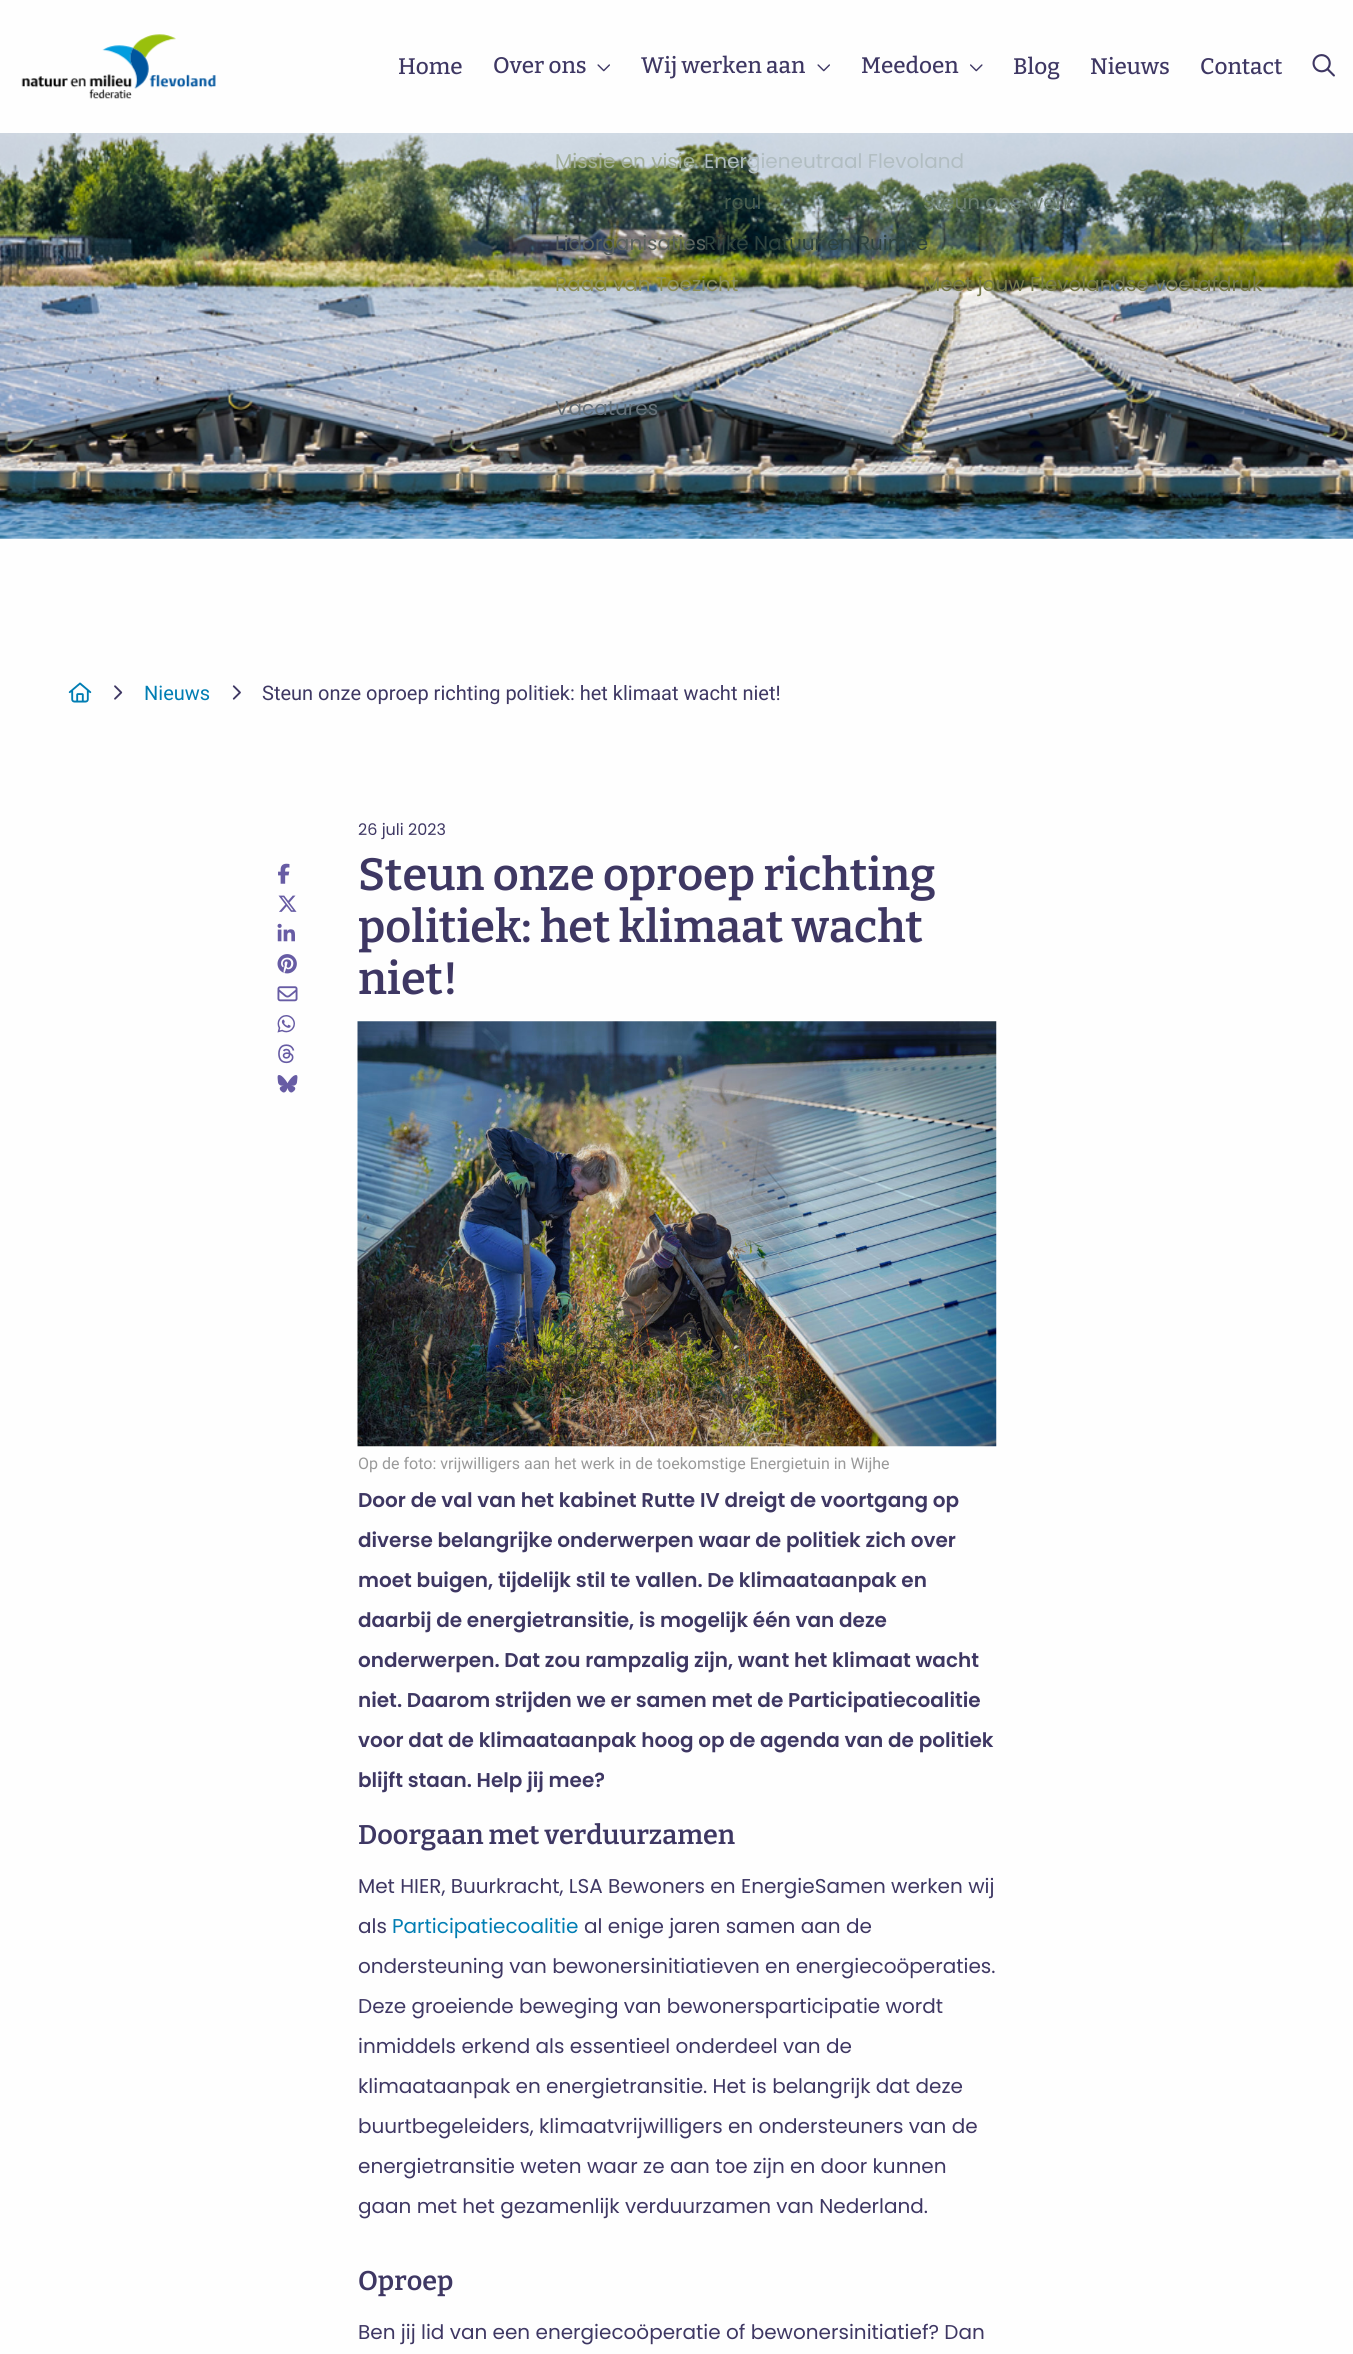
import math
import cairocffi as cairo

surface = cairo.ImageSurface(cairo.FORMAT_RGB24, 1353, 2354)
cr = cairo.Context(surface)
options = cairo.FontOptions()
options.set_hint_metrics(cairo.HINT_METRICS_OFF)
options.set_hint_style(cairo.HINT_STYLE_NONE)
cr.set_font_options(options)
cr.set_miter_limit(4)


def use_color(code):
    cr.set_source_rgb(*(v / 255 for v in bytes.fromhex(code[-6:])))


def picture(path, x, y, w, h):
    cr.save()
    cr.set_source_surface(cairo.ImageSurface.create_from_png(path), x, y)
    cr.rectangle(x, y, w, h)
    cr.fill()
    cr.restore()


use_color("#fefefe")
cr.paint()
picture("img1.png", 21, 34, 195, 65)
cr.select_font_face("Bitter Medium")
cr.set_font_size(22.5)
use_color("#3e3763")
cr.move_to(641, 73)
cr.show_text("Wij werken aan")
picture("img2.png", 817, 64, 13, 8)
picture("img5.png", 0, 133, 1353, 406)
cr.select_font_face("Poppins")
cr.set_font_size(20)
use_color("#b1bdc1")
cr.move_to(704, 168)
cr.show_text("Energieneutraal Flevoland")
use_color("#475c4c")
cr.move_to(724, 209)
cr.show_text("rcul")
use_color("#5b635f")
cr.move_to(555, 250)
cr.show_text("Lidorganisaties")
use_color("#2f433e")
cr.move_to(704, 250)
cr.show_text("Rijke Natuur en Ruimte")
cr.select_font_face("Bitter Medium")
cr.set_font_size(22.5)
use_color("#3e3763")
cr.move_to(861, 73)
cr.show_text("Meedoen")
picture("img3.png", 970, 64, 13, 8)
cr.select_font_face("Poppins")
cr.set_font_size(20)
use_color("#6c7e6f")
cr.move_to(923, 209)
cr.show_text("Steun ons werk")
use_color("#767a4a")
cr.move_to(923, 291)
cr.show_text("Meet jouw Flevolandse voetafdruk")
picture("img4.png", 1312, 54, 23, 23)
cr.select_font_face("Bitter Medium")
cr.set_font_size(22.5)
use_color("#3e3763")
cr.move_to(398, 74)
cr.show_text("Home")
cr.move_to(493, 73)
cr.show_text("Over ons")
picture("img2.png", 597, 64, 13, 8)
cr.select_font_face("Poppins")
cr.set_font_size(20)
use_color("#a1ae99")
cr.move_to(555, 168)
cr.show_text("Missie en visie")
use_color("#8c8f57")
cr.move_to(555, 291)
cr.show_text("Raad van Toezicht")
use_color("#667179")
cr.move_to(555, 415)
cr.show_text("Vacatures")
cr.select_font_face("Bitter Medium")
cr.set_font_size(22.5)
use_color("#3e3763")
cr.move_to(1013, 74)
cr.show_text("Blog")
cr.move_to(1090, 74)
cr.show_text("Nieuws")
cr.move_to(1200, 74)
cr.show_text("Contact")
picture("img6.png", 68, 682, 24, 21)
picture("img7.png", 114, 685, 9, 15)
cr.select_font_face("Roboto")
cr.set_font_size(20)
use_color("#007db3")
cr.move_to(144, 700)
cr.show_text("Nieuws")
picture("img8.png", 232, 685, 9, 15)
use_color("#3e3763")
cr.move_to(262, 700)
cr.show_text("Steun onze oproep richting politiek: het klimaat wacht niet!")
cr.select_font_face("Poppins")
cr.set_font_size(16)
cr.move_to(358, 835)
cr.show_text("26 juli 2023")
picture("img9.png", 278, 863, 12, 21)
picture("img10.png", 278, 895, 19, 17)
picture("img11.png", 277, 923, 18, 19)
picture("img12.png", 277, 954, 20, 20)
picture("img13.png", 277, 986, 21, 16)
picture("img14.png", 277, 1015, 18, 18)
picture("img15.png", 278, 1044, 17, 20)
picture("img16.png", 277, 1075, 21, 18)
cr.select_font_face("Bitter SemiBold")
cr.set_font_size(45.1)
cr.move_to(358, 890)
cr.show_text("Steun onze oproep richting")
cr.move_to(358, 942)
cr.show_text("politiek: het klimaat wacht")
cr.move_to(358, 994)
cr.show_text("niet!")
picture("img17.png", 357, 1021, 640, 426)
cr.select_font_face("Roboto")
cr.set_font_size(16)
use_color("#999999")
cr.move_to(358, 1469)
cr.show_text("Op de foto: vrijwilligers aan het werk in de toekomstige Energietuin in Wijhe")
cr.select_font_face("Poppins SemiBold")
cr.set_font_size(20)
use_color("#3e3763")
cr.move_to(358, 1507)
cr.show_text("Door de val van het kabinet Rutte IV dreigt de voortgang op")
cr.move_to(358, 1547)
cr.show_text("diverse belangrijke onderwerpen waar de politiek zich over")
cr.move_to(358, 1587)
cr.show_text("moet buigen, tijdelijk stil te vallen. De klimaataanpak en")
cr.move_to(358, 1627)
cr.show_text("daarbij de energietransitie, is mogelijk één van deze")
cr.move_to(358, 1667)
cr.show_text("onderwerpen. Dat zou rampzalig zijn, want het klimaat wacht")
cr.move_to(358, 1707)
cr.show_text("niet. Daarom strijden we er samen met de Participatiecoalitie")
cr.move_to(358, 1747)
cr.show_text("voor dat de klimaataanpak hoog op de agenda van de politiek")
cr.move_to(358, 1787)
cr.show_text("blijft staan. Help jij mee?")
cr.select_font_face("Bitter SemiBold")
cr.set_font_size(27)
cr.move_to(358, 1844)
cr.show_text("Doorgaan met verduurzamen")
cr.select_font_face("Poppins")
cr.set_font_size(20)
cr.move_to(358, 1893)
cr.show_text("Met HIER, Buurkracht, LSA Bewoners en EnergieSamen werken wij")
cr.move_to(358, 1933)
cr.show_text("als")
use_color("#007db3")
cr.move_to(392, 1933)
cr.show_text("Participatiecoalitie")
use_color("#3e3763")
cr.move_to(584, 1933)
cr.show_text("al enige jaren samen aan de")
cr.move_to(358, 1973)
cr.show_text("ondersteuning van bewonersinitiatieven en energiecoöperaties.")
cr.move_to(358, 2013)
cr.show_text("Deze groeiende beweging van bewonersparticipatie wordt")
cr.move_to(358, 2053)
cr.show_text("inmiddels erkend als essentieel onderdeel van de")
cr.move_to(358, 2093)
cr.show_text("klimaataanpak en energietransitie. Het is belangrijk dat deze")
cr.move_to(358, 2133)
cr.show_text("buurtbegeleiders, klimaatvrijwilligers en ondersteuners van de")
cr.move_to(358, 2173)
cr.show_text("energietransitie weten waar ze aan toe zijn en door kunnen")
cr.move_to(358, 2213)
cr.show_text("gaan met het gezamenlijk verduurzamen van Nederland.")
cr.select_font_face("Bitter SemiBold")
cr.set_font_size(27)
cr.move_to(358, 2290)
cr.show_text("Oproep")
cr.select_font_face("Poppins")
cr.set_font_size(20)
cr.move_to(358, 2339)
cr.show_text("Ben jij lid van een energiecoöperatie of bewonersinitiatief? Dan")
surface.write_to_png("result.png")
